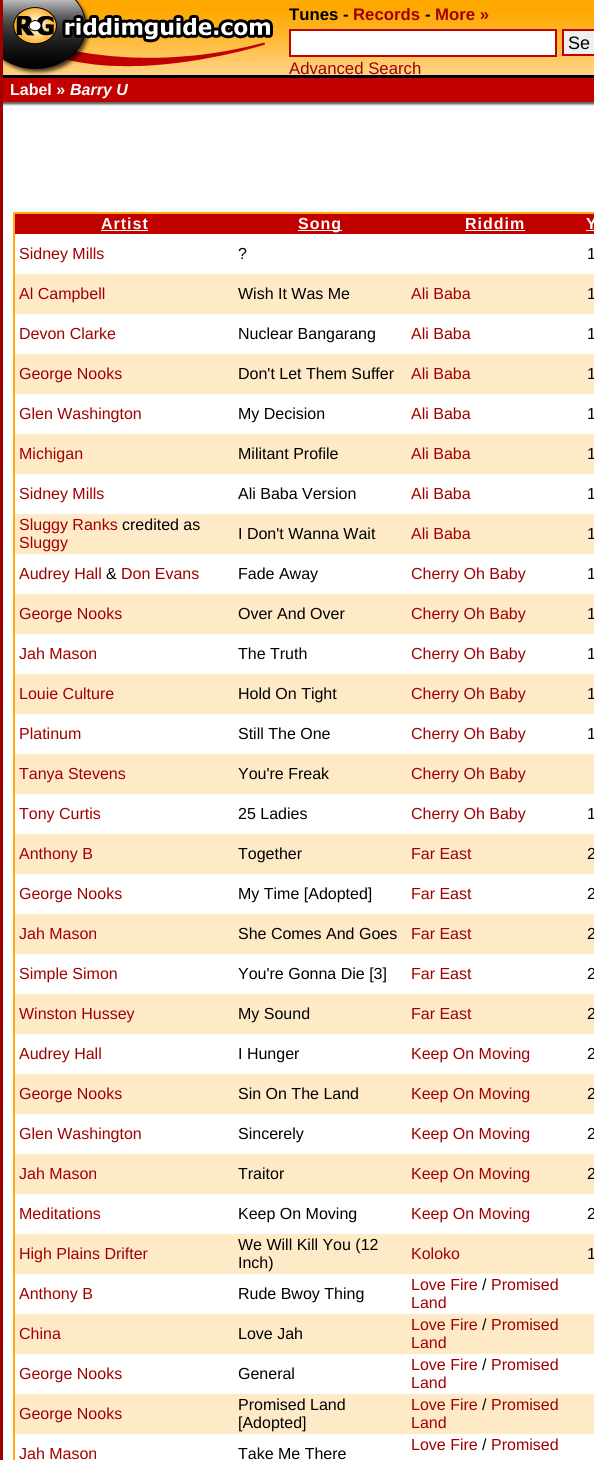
import math
import cairocffi as cairo

surface = cairo.ImageSurface(cairo.FORMAT_RGB24, 594, 1460)
cr = cairo.Context(surface)
options = cairo.FontOptions()
options.set_hint_metrics(cairo.HINT_METRICS_OFF)
options.set_hint_style(cairo.HINT_STYLE_NONE)
cr.set_font_options(options)
cr.set_miter_limit(4)


def use_color(code):
    cr.set_source_rgb(*(v / 255 for v in bytes.fromhex(code[-6:])))


def spaced_text(x, y, s, letter, word):
    cr.move_to(x, y)
    for ch in s:
        cr.show_text(ch)
        cr.rel_move_to(letter + word * (ch == ' '), 0)


def picture(path, x, y, w, h):
    cr.save()
    cr.set_source_surface(cairo.ImageSurface.create_from_png(path), x, y)
    cr.rectangle(x, y, w, h)
    cr.fill()
    cr.restore()


use_color("#ffffff")
cr.paint()
use_color("#a10000")
cr.rectangle(0, 0, 3, 1460)
cr.fill()
picture("img1.png", 3, 0, 591, 75)
picture("img2.png", 3, 0, 270, 75)
cr.select_font_face("Liberation Sans", cairo.FONT_SLANT_NORMAL, cairo.FONT_WEIGHT_BOLD)
cr.set_font_size(16.75)
use_color("#000000")
cr.move_to(289, 20)
cr.show_text("Tunes -")
use_color("#a10000")
cr.move_to(353, 20)
cr.show_text("Records")
use_color("#000000")
cr.move_to(425, 20)
cr.show_text("-")
use_color("#a10000")
cr.move_to(435, 20)
cr.show_text("More »")
use_color("#ffffff")
cr.rectangle(290, 30, 266, 26)
cr.fill_preserve()
use_color("#c10000")
cr.stroke()
use_color("#efefef")
cr.rectangle(563, 30, 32, 25)
cr.fill_preserve()
use_color("#c10000")
cr.stroke()
cr.select_font_face("Liberation Sans")
cr.set_font_size(18)
use_color("#000000")
cr.move_to(568, 49)
cr.show_text("Se")
cr.set_font_size(16.75)
use_color("#a10000")
cr.move_to(289, 74)
cr.show_text("Advanced Search")
use_color("#c10000")
cr.rectangle(3, 78, 591, 24)
cr.fill()
use_color("#000000")
cr.rectangle(3, 75, 591, 3)
cr.fill()
cr.select_font_face("Liberation Sans", cairo.FONT_SLANT_NORMAL, cairo.FONT_WEIGHT_BOLD)
cr.set_font_size(16)
use_color("#ffffff")
cr.move_to(10, 95)
cr.show_text("Label »")
cr.select_font_face("Liberation Sans", cairo.FONT_SLANT_ITALIC, cairo.FONT_WEIGHT_BOLD)
cr.move_to(70, 95)
cr.show_text("Barry U")
picture("img3.png", 3, 102, 591, 4)
cr.rectangle(14, 213, 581, 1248)
use_color("#ffac10")
cr.stroke()
use_color("#c10000")
cr.rectangle(15, 214, 579, 20)
cr.fill()
cr.select_font_face("Liberation Sans", cairo.FONT_SLANT_NORMAL, cairo.FONT_WEIGHT_BOLD)
use_color("#ffffff")
spaced_text(101, 229, "Artist", 1, 0)
cr.rectangle(101, 230, 47, 1)
cr.fill()
cr.rectangle(298, 230, 44, 1)
cr.fill()
spaced_text(298, 229, "Song", 1, 0)
spaced_text(465, 229, "Riddim", 1, 0)
cr.rectangle(465, 230, 60, 1)
cr.fill()
spaced_text(586, 229, "Y", 1, 0)
cr.rectangle(586, 230, 8, 1)
cr.fill()
cr.select_font_face("Liberation Sans")
use_color("#a10000")
cr.move_to(19, 259)
cr.show_text("Sidney Mills")
use_color("#000000")
cr.move_to(238, 259)
cr.show_text("?")
cr.move_to(587, 259)
cr.show_text("1")
use_color("#ffeac7")
cr.rectangle(15, 274, 579, 40)
cr.fill()
use_color("#a10000")
cr.move_to(19, 299)
cr.show_text("Al Campbell")
use_color("#000000")
cr.move_to(238, 299)
cr.show_text("Wish It Was Me")
use_color("#a10000")
cr.move_to(411, 299)
cr.show_text("Ali Baba")
use_color("#000000")
cr.move_to(587, 299)
cr.show_text("1")
use_color("#a10000")
cr.move_to(19, 339)
cr.show_text("Devon Clarke")
use_color("#000000")
cr.move_to(238, 339)
cr.show_text("Nuclear Bangarang")
use_color("#a10000")
cr.move_to(411, 339)
cr.show_text("Ali Baba")
use_color("#000000")
cr.move_to(587, 339)
cr.show_text("1")
use_color("#ffeac7")
cr.rectangle(15, 354, 579, 40)
cr.fill()
use_color("#a10000")
cr.move_to(19, 379)
cr.show_text("George Nooks")
use_color("#000000")
cr.move_to(238, 379)
cr.show_text("Don't Let Them Suffer")
use_color("#a10000")
cr.move_to(411, 379)
cr.show_text("Ali Baba")
use_color("#000000")
cr.move_to(587, 379)
cr.show_text("1")
use_color("#a10000")
cr.move_to(19, 419)
cr.show_text("Glen Washington")
use_color("#000000")
cr.move_to(238, 419)
cr.show_text("My Decision")
use_color("#a10000")
cr.move_to(411, 419)
cr.show_text("Ali Baba")
use_color("#000000")
cr.move_to(587, 419)
cr.show_text("1")
use_color("#ffeac7")
cr.rectangle(15, 434, 579, 40)
cr.fill()
use_color("#a10000")
cr.move_to(19, 459)
cr.show_text("Michigan")
use_color("#000000")
cr.move_to(238, 459)
cr.show_text("Militant Profile")
use_color("#a10000")
cr.move_to(411, 459)
cr.show_text("Ali Baba")
use_color("#000000")
cr.move_to(587, 459)
cr.show_text("1")
use_color("#a10000")
cr.move_to(19, 499)
cr.show_text("Sidney Mills")
use_color("#000000")
cr.move_to(238, 499)
cr.show_text("Ali Baba Version")
use_color("#a10000")
cr.move_to(411, 499)
cr.show_text("Ali Baba")
use_color("#000000")
cr.move_to(587, 499)
cr.show_text("1")
use_color("#ffeac7")
cr.rectangle(15, 514, 579, 40)
cr.fill()
use_color("#a10000")
cr.move_to(19, 530)
cr.show_text("Sluggy Ranks")
use_color("#000000")
cr.move_to(122, 530)
cr.show_text("credited as")
use_color("#a10000")
cr.move_to(19, 548)
cr.show_text("Sluggy")
use_color("#000000")
cr.move_to(238, 539)
cr.show_text("I Don't Wanna Wait")
use_color("#a10000")
cr.move_to(411, 539)
cr.show_text("Ali Baba")
use_color("#000000")
cr.move_to(587, 539)
cr.show_text("1")
use_color("#a10000")
cr.move_to(19, 579)
cr.show_text("Audrey Hall")
use_color("#000000")
cr.move_to(106, 579)
cr.show_text("&")
use_color("#a10000")
cr.move_to(121, 579)
cr.show_text("Don Evans")
use_color("#000000")
cr.move_to(238, 579)
cr.show_text("Fade Away")
use_color("#a10000")
cr.move_to(411, 579)
cr.show_text("Cherry Oh Baby")
use_color("#000000")
cr.move_to(587, 579)
cr.show_text("1")
use_color("#ffeac7")
cr.rectangle(15, 594, 579, 40)
cr.fill()
use_color("#a10000")
cr.move_to(19, 619)
cr.show_text("George Nooks")
use_color("#000000")
cr.move_to(238, 619)
cr.show_text("Over And Over")
use_color("#a10000")
cr.move_to(411, 619)
cr.show_text("Cherry Oh Baby")
use_color("#000000")
cr.move_to(587, 619)
cr.show_text("1")
use_color("#a10000")
cr.move_to(19, 659)
cr.show_text("Jah Mason")
use_color("#000000")
cr.move_to(238, 659)
cr.show_text("The Truth")
use_color("#a10000")
cr.move_to(411, 659)
cr.show_text("Cherry Oh Baby")
use_color("#000000")
cr.move_to(587, 659)
cr.show_text("1")
use_color("#ffeac7")
cr.rectangle(15, 674, 579, 40)
cr.fill()
use_color("#a10000")
cr.move_to(19, 699)
cr.show_text("Louie Culture")
use_color("#000000")
cr.move_to(238, 699)
cr.show_text("Hold On Tight")
use_color("#a10000")
cr.move_to(411, 699)
cr.show_text("Cherry Oh Baby")
use_color("#000000")
cr.move_to(587, 699)
cr.show_text("1")
use_color("#a10000")
cr.move_to(19, 739)
cr.show_text("Platinum")
use_color("#000000")
cr.move_to(238, 739)
cr.show_text("Still The One")
use_color("#a10000")
cr.move_to(411, 739)
cr.show_text("Cherry Oh Baby")
use_color("#000000")
cr.move_to(587, 739)
cr.show_text("1")
use_color("#ffeac7")
cr.rectangle(15, 754, 579, 40)
cr.fill()
use_color("#a10000")
cr.move_to(19, 779)
cr.show_text("Tanya Stevens")
use_color("#000000")
cr.move_to(238, 779)
cr.show_text("You're Freak")
use_color("#a10000")
cr.move_to(411, 779)
cr.show_text("Cherry Oh Baby")
cr.move_to(19, 819)
cr.show_text("Tony Curtis")
use_color("#000000")
cr.move_to(238, 819)
cr.show_text("25 Ladies")
use_color("#a10000")
cr.move_to(411, 819)
cr.show_text("Cherry Oh Baby")
use_color("#000000")
cr.move_to(587, 819)
cr.show_text("1")
use_color("#ffeac7")
cr.rectangle(15, 834, 579, 40)
cr.fill()
use_color("#a10000")
cr.move_to(19, 859)
cr.show_text("Anthony B")
use_color("#000000")
cr.move_to(238, 859)
cr.show_text("Together")
use_color("#a10000")
cr.move_to(411, 859)
cr.show_text("Far East")
use_color("#000000")
cr.move_to(587, 859)
cr.show_text("2")
use_color("#a10000")
cr.move_to(19, 899)
cr.show_text("George Nooks")
use_color("#000000")
cr.move_to(238, 899)
cr.show_text("My Time [Adopted]")
use_color("#a10000")
cr.move_to(411, 899)
cr.show_text("Far East")
use_color("#000000")
cr.move_to(587, 899)
cr.show_text("2")
use_color("#ffeac7")
cr.rectangle(15, 914, 579, 40)
cr.fill()
use_color("#a10000")
cr.move_to(19, 939)
cr.show_text("Jah Mason")
use_color("#000000")
cr.move_to(238, 939)
cr.show_text("She Comes And Goes")
use_color("#a10000")
cr.move_to(411, 939)
cr.show_text("Far East")
use_color("#000000")
cr.move_to(587, 939)
cr.show_text("2")
use_color("#a10000")
cr.move_to(19, 979)
cr.show_text("Simple Simon")
use_color("#000000")
cr.move_to(238, 979)
cr.show_text("You're Gonna Die [3]")
use_color("#a10000")
cr.move_to(411, 979)
cr.show_text("Far East")
use_color("#000000")
cr.move_to(587, 979)
cr.show_text("2")
use_color("#ffeac7")
cr.rectangle(15, 994, 579, 40)
cr.fill()
use_color("#a10000")
cr.move_to(19, 1019)
cr.show_text("Winston Hussey")
use_color("#000000")
cr.move_to(238, 1019)
cr.show_text("My Sound")
use_color("#a10000")
cr.move_to(411, 1019)
cr.show_text("Far East")
use_color("#000000")
cr.move_to(587, 1019)
cr.show_text("2")
use_color("#a10000")
cr.move_to(19, 1059)
cr.show_text("Audrey Hall")
use_color("#000000")
cr.move_to(238, 1059)
cr.show_text("I Hunger")
use_color("#a10000")
cr.move_to(411, 1059)
cr.show_text("Keep On Moving")
use_color("#000000")
cr.move_to(587, 1059)
cr.show_text("2")
use_color("#ffeac7")
cr.rectangle(15, 1074, 579, 40)
cr.fill()
use_color("#a10000")
cr.move_to(19, 1099)
cr.show_text("George Nooks")
use_color("#000000")
cr.move_to(238, 1099)
cr.show_text("Sin On The Land")
use_color("#a10000")
cr.move_to(411, 1099)
cr.show_text("Keep On Moving")
use_color("#000000")
cr.move_to(587, 1099)
cr.show_text("2")
use_color("#a10000")
cr.move_to(19, 1139)
cr.show_text("Glen Washington")
use_color("#000000")
cr.move_to(238, 1139)
cr.show_text("Sincerely")
use_color("#a10000")
cr.move_to(411, 1139)
cr.show_text("Keep On Moving")
use_color("#000000")
cr.move_to(587, 1139)
cr.show_text("2")
use_color("#ffeac7")
cr.rectangle(15, 1154, 579, 40)
cr.fill()
use_color("#a10000")
cr.move_to(19, 1179)
cr.show_text("Jah Mason")
use_color("#000000")
cr.move_to(238, 1179)
cr.show_text("Traitor")
use_color("#a10000")
cr.move_to(411, 1179)
cr.show_text("Keep On Moving")
use_color("#000000")
cr.move_to(587, 1179)
cr.show_text("2")
use_color("#a10000")
cr.move_to(19, 1219)
cr.show_text("Meditations")
use_color("#000000")
cr.move_to(238, 1219)
cr.show_text("Keep On Moving")
use_color("#a10000")
cr.move_to(411, 1219)
cr.show_text("Keep On Moving")
use_color("#000000")
cr.move_to(587, 1219)
cr.show_text("2")
use_color("#ffeac7")
cr.rectangle(15, 1234, 579, 40)
cr.fill()
use_color("#a10000")
cr.move_to(19, 1259)
cr.show_text("High Plains Drifter")
use_color("#000000")
cr.move_to(238, 1250)
cr.show_text("We Will Kill You (12")
cr.move_to(238, 1268)
cr.show_text("Inch)")
use_color("#a10000")
cr.move_to(411, 1259)
cr.show_text("Koloko")
use_color("#000000")
cr.move_to(587, 1259)
cr.show_text("1")
use_color("#a10000")
cr.move_to(19, 1299)
cr.show_text("Anthony B")
use_color("#000000")
cr.move_to(238, 1299)
cr.show_text("Rude Bwoy Thing")
use_color("#a10000")
cr.move_to(411, 1290)
cr.show_text("Love Fire")
use_color("#000000")
cr.move_to(482, 1290)
cr.show_text("/")
use_color("#a10000")
cr.move_to(491, 1290)
cr.show_text("Promised")
cr.move_to(411, 1308)
cr.show_text("Land")
use_color("#ffeac7")
cr.rectangle(15, 1314, 579, 40)
cr.fill()
use_color("#a10000")
cr.move_to(19, 1339)
cr.show_text("China")
use_color("#000000")
cr.move_to(238, 1339)
cr.show_text("Love Jah")
use_color("#a10000")
cr.move_to(411, 1330)
cr.show_text("Love Fire")
use_color("#000000")
cr.move_to(482, 1330)
cr.show_text("/")
use_color("#a10000")
cr.move_to(491, 1330)
cr.show_text("Promised")
cr.move_to(411, 1348)
cr.show_text("Land")
cr.move_to(19, 1379)
cr.show_text("George Nooks")
use_color("#000000")
cr.move_to(238, 1379)
cr.show_text("General")
use_color("#a10000")
cr.move_to(411, 1370)
cr.show_text("Love Fire")
use_color("#000000")
cr.move_to(482, 1370)
cr.show_text("/")
use_color("#a10000")
cr.move_to(491, 1370)
cr.show_text("Promised")
cr.move_to(411, 1388)
cr.show_text("Land")
use_color("#ffeac7")
cr.rectangle(15, 1394, 579, 40)
cr.fill()
use_color("#a10000")
cr.move_to(19, 1419)
cr.show_text("George Nooks")
use_color("#000000")
cr.move_to(238, 1410)
cr.show_text("Promised Land")
cr.move_to(238, 1428)
cr.show_text("[Adopted]")
use_color("#a10000")
cr.move_to(411, 1410)
cr.show_text("Love Fire")
use_color("#000000")
cr.move_to(482, 1410)
cr.show_text("/")
use_color("#a10000")
cr.move_to(491, 1410)
cr.show_text("Promised")
cr.move_to(411, 1428)
cr.show_text("Land")
cr.move_to(411, 1450)
cr.show_text("Love Fire")
use_color("#000000")
cr.move_to(482, 1450)
cr.show_text("/")
use_color("#a10000")
cr.move_to(491, 1450)
cr.show_text("Promised")
cr.move_to(19, 1459)
cr.show_text("Jah Mason")
use_color("#000000")
cr.move_to(238, 1459)
cr.show_text("Take Me There")
surface.write_to_png("result.png")
